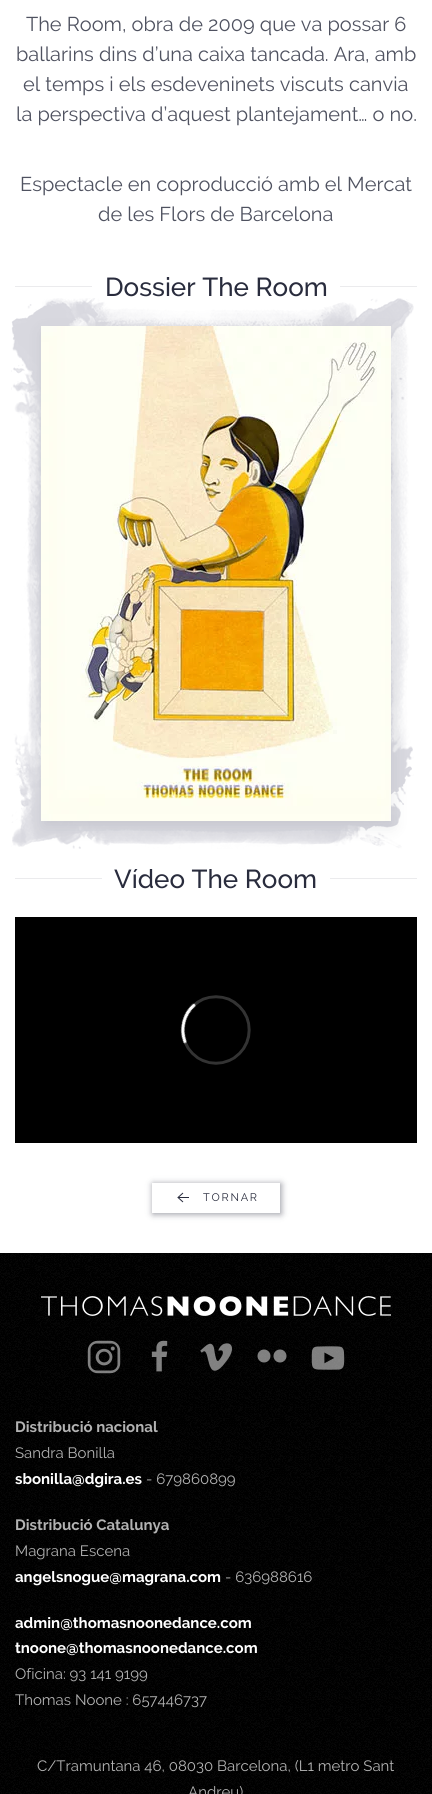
import math
import cairocffi as cairo

surface = cairo.ImageSurface(cairo.FORMAT_RGB24, 432, 1794)
cr = cairo.Context(surface)
options = cairo.FontOptions()
options.set_hint_metrics(cairo.HINT_METRICS_OFF)
options.set_hint_style(cairo.HINT_STYLE_NONE)
cr.set_font_options(options)
cr.set_miter_limit(4)


def use_color(code):
    cr.set_source_rgb(*(v / 255 for v in bytes.fromhex(code[-6:])))


def spaced_text(x, y, s, letter, word):
    cr.move_to(x, y)
    for ch in s:
        cr.show_text(ch)
        cr.rel_move_to(letter + word * (ch == ' '), 0)


def round_rect(x, y, w, h, r):
    cr.new_sub_path()
    for i, (u, v) in enumerate([(x + w - r, y + h - r), (x + r, y + h - r), (x + r, y + r), (x + w - r, y + r)]):
        cr.arc(u, v, r, i * math.pi / 2, (i + 1) * math.pi / 2)
    cr.close_path()


def shadow(x, y, w, h, r, blur, alpha):
    cr.push_group_with_content(cairo.CONTENT_ALPHA)
    cr.set_operator(cairo.OPERATOR_SOURCE)
    for i in range(15, -16, -2):
        e = blur * i / 6
        if min(w, h) + 2 * e > 0:
            cr.set_source_rgba(0, 0, 0, alpha * math.erfc((i - 1) / 8.5) / 2)
            round_rect(x - e, y - e, w + 2 * e, h + 2 * e, max(0, min(r + e + blur * .6, min(w, h) / 2 + e)))
            cr.fill()
    cr.mask(cr.pop_group())


def picture(path, x, y, w, h):
    cr.save()
    cr.set_source_surface(cairo.ImageSurface.create_from_png(path), x, y)
    cr.rectangle(x, y, w, h)
    cr.fill()
    cr.restore()


use_color("#ffffff")
cr.paint()
cr.select_font_face("Raleway")
cr.set_font_size(20)
use_color("#4f5260")
cr.move_to(26, 31)
cr.show_text("The Room, obra de 2009 que va possar 6")
cr.move_to(16, 61)
cr.show_text("ballarins dins d’una caixa tancada. Ara, amb")
cr.move_to(23, 91)
cr.show_text("el temps i els esdeveninets viscuts canvia")
cr.move_to(16, 121)
cr.show_text("la perspectiva d’aquest plantejament… o no.")
cr.move_to(20, 191)
cr.show_text("Espectacle en coproducció amb el Mercat")
cr.move_to(98, 221)
cr.show_text("de les Flors de Barcelona")
use_color("#ebebed")
cr.rectangle(15, 286, 77, 1)
cr.fill()
cr.select_font_face("Raleway Medium")
cr.set_font_size(26)
use_color("#292c3d")
cr.move_to(105, 296)
cr.show_text("Dossier The Room")
use_color("#ebebed")
cr.rectangle(340, 286, 77, 1)
cr.fill()
picture("img1.png", 11, 298, 403, 551)
use_color("#292c3d")
shadow(43, 332, 350, 495, 0, 7.5, 0.1)
picture("img2.png", 41, 326, 350, 495)
use_color("#ebebed")
cr.rectangle(15, 878, 87, 1)
cr.fill()
use_color("#292c3d")
cr.move_to(114, 888)
cr.show_text("Vídeo The Room")
use_color("#ebebed")
cr.rectangle(330, 878, 87, 1)
cr.fill()
picture("img3.png", 15, 917, 402, 226)
cr.save()
cr.set_fill_rule(cairo.FILL_RULE_EVEN_ODD)
cr.new_path()
cr.move_to(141, 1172)
cr.line_to(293, 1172)
cr.line_to(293, 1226)
cr.line_to(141, 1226)
cr.close_path()
cr.move_to(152, 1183)
cr.line_to(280, 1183)
cr.line_to(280, 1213)
cr.line_to(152, 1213)
cr.close_path()
cr.clip()
use_color("#292c3d")
shadow(153, 1184, 128, 30, 0, 3.5, 0.5)
cr.restore()
picture("img4.png", 177, 1192, 12, 11)
cr.select_font_face("Raleway")
cr.set_font_size(11)
use_color("#292c3d")
spaced_text(203, 1201, "TORNAR", 1.75, 0)
use_color("#000000")
cr.rectangle(0, 1253, 432, 541)
cr.fill()
picture("img5.png", 0, 1253, 432, 541)
picture("img6.png", 41, 1296, 350, 20)
picture("img7.png", 87, 1340, 34, 34)
picture("img8.png", 151, 1340, 17, 32)
picture("img9.png", 200, 1343, 32, 28)
cr.set_source_rgba(1, 1, 1, 0.5)
cr.arc(264, 1356, 6.5, 0, 2 * math.pi)
cr.fill()
cr.arc(280, 1356, 6.5, 0, 2 * math.pi)
cr.fill()
picture("img10.png", 311, 1346, 34, 24)
cr.select_font_face("Raleway", cairo.FONT_SLANT_NORMAL, cairo.FONT_WEIGHT_BOLD)
cr.set_font_size(15)
use_color("#b3b3b3")
cr.move_to(15, 1432)
cr.show_text("Distribució nacional")
cr.select_font_face("Raleway")
cr.move_to(15, 1458)
cr.show_text("Sandra Bonilla")
cr.select_font_face("Raleway", cairo.FONT_SLANT_NORMAL, cairo.FONT_WEIGHT_BOLD)
use_color("#ffffff")
cr.move_to(15, 1484)
cr.show_text("sbonilla@dgira.es")
cr.select_font_face("Raleway")
use_color("#b3b3b3")
cr.move_to(146, 1484)
cr.show_text("- 679860899")
cr.select_font_face("Raleway", cairo.FONT_SLANT_NORMAL, cairo.FONT_WEIGHT_BOLD)
cr.move_to(15, 1530)
cr.show_text("Distribució Catalunya")
cr.select_font_face("Raleway")
cr.move_to(15, 1556)
cr.show_text("Magrana Escena")
cr.select_font_face("Raleway", cairo.FONT_SLANT_NORMAL, cairo.FONT_WEIGHT_BOLD)
use_color("#ffffff")
cr.move_to(15, 1582)
cr.show_text("angelsnogue@magrana.com")
cr.select_font_face("Raleway")
use_color("#b3b3b3")
cr.move_to(225, 1582)
cr.show_text("- 636988616")
cr.select_font_face("Raleway", cairo.FONT_SLANT_NORMAL, cairo.FONT_WEIGHT_BOLD)
use_color("#ffffff")
cr.move_to(15, 1628)
cr.show_text("admin@thomasnoonedance.com")
cr.move_to(15, 1653)
cr.show_text("tnoone@thomasnoonedance.com")
cr.select_font_face("Raleway")
use_color("#b3b3b3")
cr.move_to(15, 1679)
cr.show_text("Oficina: 93 141 9199")
cr.move_to(15, 1705)
cr.show_text("Thomas Noone : 657446737")
cr.move_to(37, 1771)
cr.show_text("C/Tramuntana 46, 08030 Barcelona, (L1 metro Sant")
cr.move_to(188, 1797)
cr.show_text("Andreu)")
surface.write_to_png("result.png")
